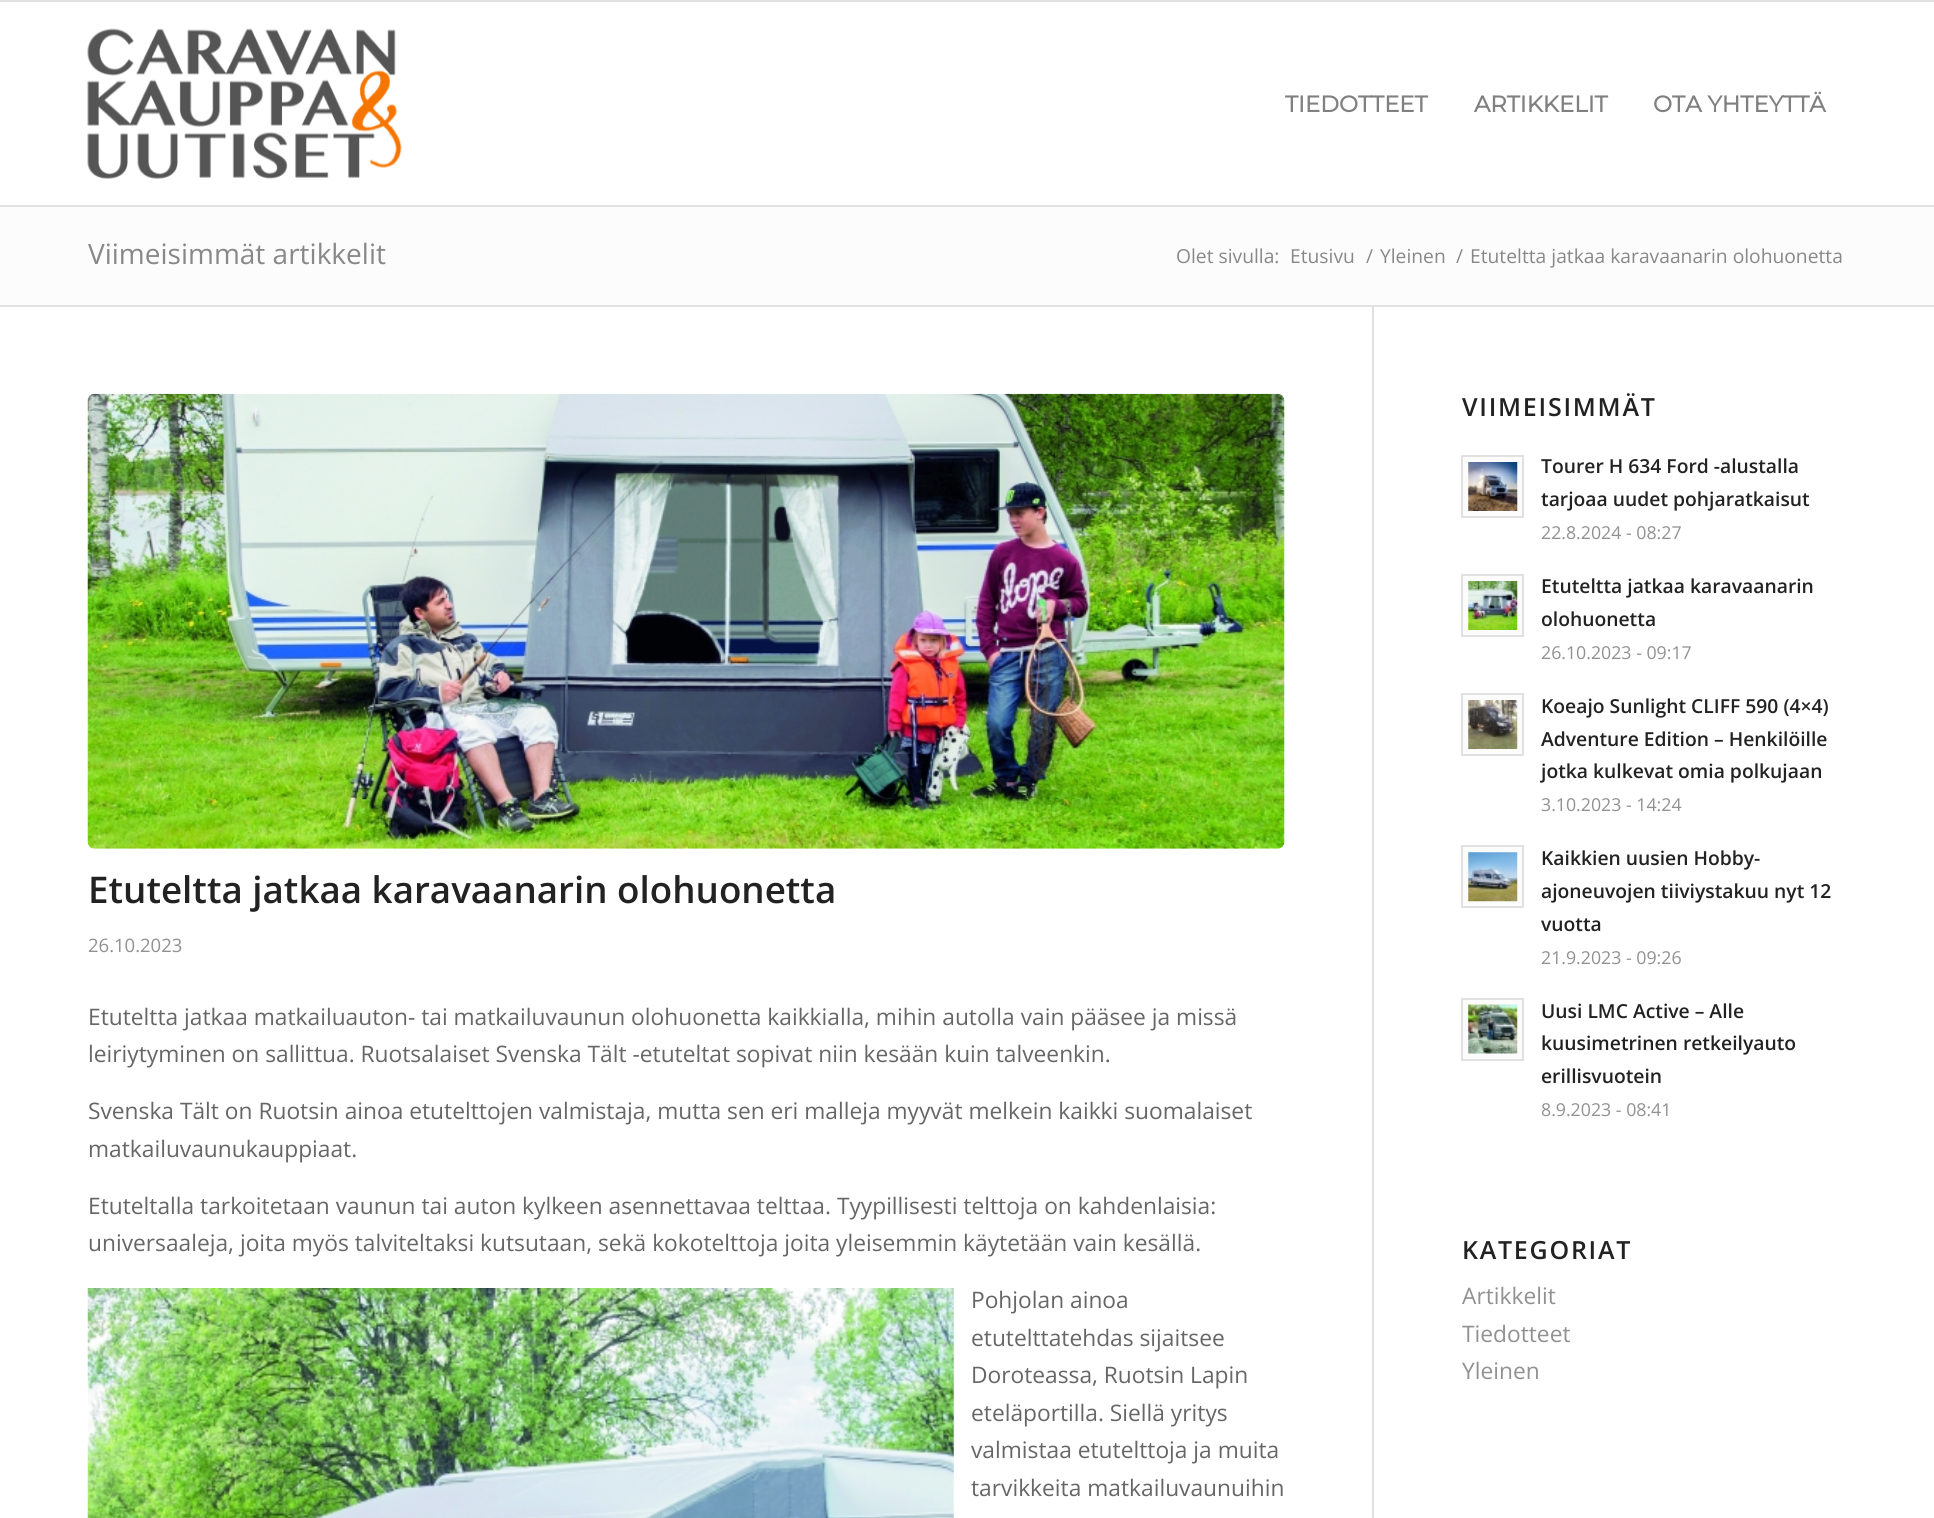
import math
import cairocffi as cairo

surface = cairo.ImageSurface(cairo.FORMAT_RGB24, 1934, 1518)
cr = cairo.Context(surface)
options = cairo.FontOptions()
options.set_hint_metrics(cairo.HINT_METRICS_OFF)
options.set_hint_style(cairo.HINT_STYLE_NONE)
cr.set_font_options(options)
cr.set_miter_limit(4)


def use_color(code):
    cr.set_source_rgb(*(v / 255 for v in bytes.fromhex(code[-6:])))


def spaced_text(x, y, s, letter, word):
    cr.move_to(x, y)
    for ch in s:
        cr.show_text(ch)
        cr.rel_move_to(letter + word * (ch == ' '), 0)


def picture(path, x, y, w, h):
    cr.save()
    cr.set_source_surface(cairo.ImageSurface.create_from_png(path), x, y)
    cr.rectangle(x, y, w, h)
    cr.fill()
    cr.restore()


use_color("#ffffff")
cr.paint()
use_color("#e1e1e1")
cr.rectangle(0, 0, 1934, 2)
cr.fill()
cr.rectangle(0, 205, 1934, 2)
cr.fill()
picture("img1.png", 87, 28, 315, 151)
cr.select_font_face("Montserrat", cairo.FONT_SLANT_NORMAL, cairo.FONT_WEIGHT_BOLD)
cr.set_font_size(22.75)
use_color("#808080")
cr.move_to(1285, 112)
cr.show_text("TIEDOTTEET")
cr.move_to(1474, 112)
cr.show_text("ARTIKKELIT")
cr.move_to(1653, 112)
cr.show_text("OTA YHTEYTTÄ")
use_color("#fcfcfc")
cr.rectangle(0, 207, 1934, 98)
cr.fill()
cr.select_font_face("Open Sans")
cr.set_font_size(28)
use_color("#888888")
cr.move_to(88, 264)
cr.show_text("Viimeisimmät artikkelit")
cr.set_font_size(19.25)
cr.move_to(1176, 263)
cr.show_text("Olet sivulla:")
cr.move_to(1290, 263)
cr.show_text("Etusivu")
cr.move_to(1366, 263)
cr.show_text("/")
cr.move_to(1380, 263)
cr.show_text("Yleinen")
cr.move_to(1456, 263)
cr.show_text("/")
cr.move_to(1470, 263)
cr.show_text("Etuteltta jatkaa karavaanarin olohuonetta")
use_color("#e1e1e1")
cr.rectangle(0, 305, 1934, 2)
cr.fill()
cr.rectangle(1372, 306, 2, 1212)
cr.fill()
picture("img2.png", 87, 393, 1198, 456)
cr.select_font_face("Open Sans SemiBold")
cr.set_font_size(36.75)
use_color("#222222")
cr.move_to(88, 903)
cr.show_text("Etuteltta jatkaa karavaanarin olohuonetta")
cr.select_font_face("Open Sans")
cr.set_font_size(18.5)
use_color("#919191")
cr.move_to(88, 952)
cr.show_text("26.10.2023")
cr.set_font_size(22.75)
use_color("#666666")
cr.move_to(88, 1025)
cr.show_text("Etuteltta jatkaa matkailuauton- tai matkailuvaunun olohuonetta kaikkialla, mihin autolla vain pääsee ja missä")
cr.move_to(88, 1062)
cr.show_text("leiriytyminen on sallittua. Ruotsalaiset Svenska Tält -etuteltat sopivat niin kesään kuin talveenkin.")
cr.move_to(88, 1119)
cr.show_text("Svenska Tält on Ruotsin ainoa etutelttojen valmistaja, mutta sen eri malleja myyvät melkein kaikki suomalaiset")
cr.move_to(88, 1157)
cr.show_text("matkailuvaunukauppiaat.")
cr.move_to(88, 1214)
cr.show_text("Etuteltalla tarkoitetaan vaunun tai auton kylkeen asennettavaa telttaa. Tyypillisesti telttoja on kahdenlaisia:")
cr.move_to(88, 1251)
cr.show_text("universaaleja, joita myös talviteltaksi kutsutaan, sekä kokotelttoja joita yleisemmin käytetään vain kesällä.")
picture("img3.png", 87, 1288, 867, 230)
cr.move_to(971, 1308)
cr.show_text("Pohjolan ainoa")
cr.move_to(971, 1346)
cr.show_text("etutelttatehdas sijaitsee")
cr.move_to(971, 1383)
cr.show_text("Doroteassa, Ruotsin Lapin")
cr.move_to(971, 1421)
cr.show_text("eteläportilla. Siellä yritys")
cr.move_to(971, 1458)
cr.show_text("valmistaa etutelttoja ja muita")
cr.move_to(971, 1496)
cr.show_text("tarvikkeita matkailuvaunuihin")
cr.select_font_face("Open Sans SemiBold")
cr.set_font_size(25)
use_color("#222222")
spaced_text(1462, 416, "VIIMEISIMMÄT", 1.75, 0)
use_color("#fcfcfc")
cr.rectangle(1462, 456, 61, 61)
cr.fill_preserve()
use_color("#e1e1e1")
cr.stroke()
picture("img4.png", 1468, 462, 50, 49)
cr.set_font_size(19.3)
use_color("#222222")
cr.move_to(1541, 473)
cr.show_text("Tourer H 634 Ford -alustalla")
cr.move_to(1541, 506)
cr.show_text("tarjoaa uudet pohjaratkaisut")
cr.select_font_face("Open Sans")
cr.set_font_size(17.75)
use_color("#919191")
cr.move_to(1541, 539)
cr.show_text("22.8.2024 - 08:27")
use_color("#fcfcfc")
cr.rectangle(1462, 575, 61, 61)
cr.fill_preserve()
use_color("#e1e1e1")
cr.stroke()
picture("img5.png", 1468, 581, 50, 49)
cr.select_font_face("Open Sans SemiBold")
cr.set_font_size(19.3)
use_color("#222222")
cr.move_to(1541, 593)
cr.show_text("Etuteltta jatkaa karavaanarin")
cr.move_to(1541, 626)
cr.show_text("olohuonetta")
cr.select_font_face("Open Sans")
cr.set_font_size(17.75)
use_color("#919191")
cr.move_to(1541, 659)
cr.show_text("26.10.2023 - 09:17")
use_color("#fcfcfc")
cr.rectangle(1462, 694, 61, 61)
cr.fill_preserve()
use_color("#e1e1e1")
cr.stroke()
picture("img6.png", 1468, 700, 50, 49)
cr.select_font_face("Open Sans SemiBold")
cr.set_font_size(19.3)
use_color("#222222")
cr.move_to(1541, 713)
cr.show_text("Koeajo Sunlight CLIFF 590 (4×4)")
cr.move_to(1541, 746)
cr.show_text("Adventure Edition – Henkilöille")
cr.save()
cr.rectangle(1540, 690, 308, 131)
cr.clip()
cr.move_to(1541, 778)
cr.show_text("jotka kulkevat omia polkujaan")
cr.restore()
cr.select_font_face("Open Sans")
cr.set_font_size(17.75)
use_color("#919191")
cr.move_to(1541, 811)
cr.show_text("3.10.2023 - 14:24")
use_color("#fcfcfc")
cr.rectangle(1462, 846, 61, 61)
cr.fill_preserve()
use_color("#e1e1e1")
cr.stroke()
picture("img7.png", 1468, 852, 50, 50)
cr.select_font_face("Open Sans SemiBold")
cr.set_font_size(19.3)
use_color("#222222")
cr.move_to(1541, 865)
cr.show_text("Kaikkien uusien Hobby-")
cr.move_to(1541, 898)
cr.show_text("ajoneuvojen tiiviystakuu nyt 12")
cr.move_to(1541, 931)
cr.show_text("vuotta")
cr.select_font_face("Open Sans")
cr.set_font_size(17.75)
use_color("#919191")
cr.move_to(1541, 964)
cr.show_text("21.9.2023 - 09:26")
use_color("#fcfcfc")
cr.rectangle(1462, 999, 61, 61)
cr.fill_preserve()
use_color("#e1e1e1")
cr.stroke()
picture("img8.png", 1468, 1004, 50, 50)
cr.select_font_face("Open Sans SemiBold")
cr.set_font_size(19.3)
use_color("#222222")
cr.move_to(1541, 1018)
cr.show_text("Uusi LMC Active – Alle")
cr.move_to(1541, 1050)
cr.show_text("kuusimetrinen retkeilyauto")
cr.move_to(1541, 1083)
cr.show_text("erillisvuotein")
cr.select_font_face("Open Sans")
cr.set_font_size(17.75)
use_color("#919191")
cr.move_to(1541, 1116)
cr.show_text("8.9.2023 - 08:41")
cr.select_font_face("Open Sans SemiBold")
cr.set_font_size(25)
use_color("#222222")
spaced_text(1462, 1259, "KATEGORIAT", 1.75, 0)
cr.select_font_face("Open Sans")
cr.set_font_size(22.75)
use_color("#919191")
cr.move_to(1462, 1304)
cr.show_text("Artikkelit")
cr.move_to(1462, 1342)
cr.show_text("Tiedotteet")
cr.move_to(1462, 1379)
cr.show_text("Yleinen")
surface.write_to_png("result.png")
